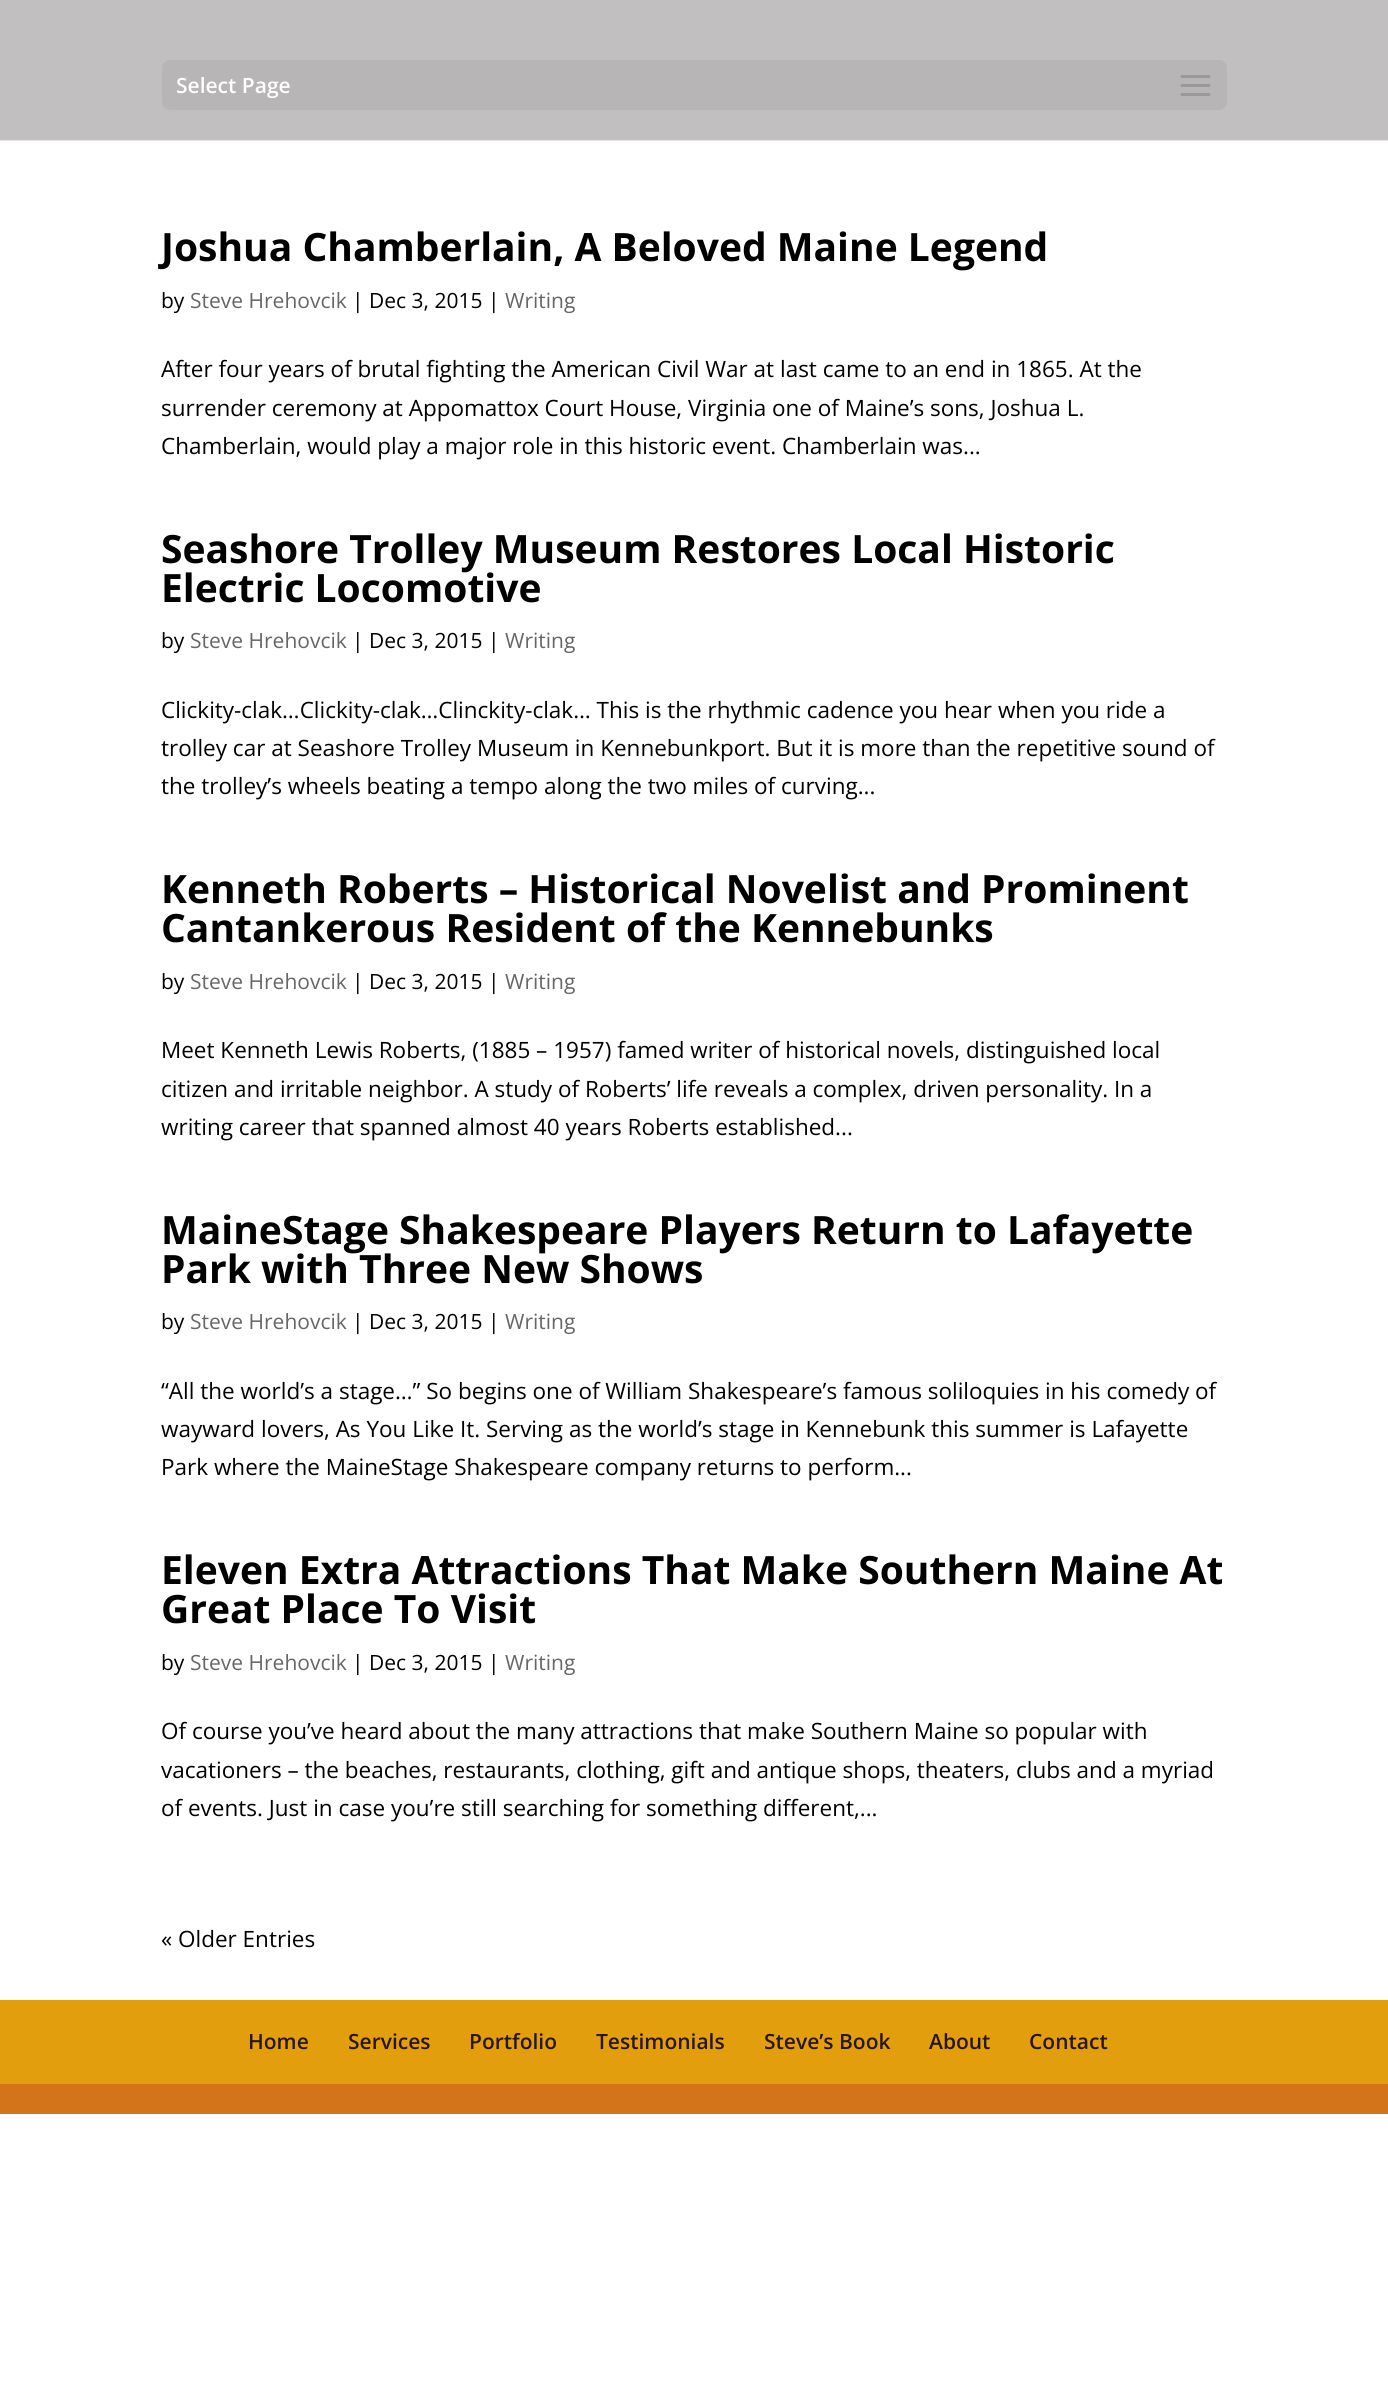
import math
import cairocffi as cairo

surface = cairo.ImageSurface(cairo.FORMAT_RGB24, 1388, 2385)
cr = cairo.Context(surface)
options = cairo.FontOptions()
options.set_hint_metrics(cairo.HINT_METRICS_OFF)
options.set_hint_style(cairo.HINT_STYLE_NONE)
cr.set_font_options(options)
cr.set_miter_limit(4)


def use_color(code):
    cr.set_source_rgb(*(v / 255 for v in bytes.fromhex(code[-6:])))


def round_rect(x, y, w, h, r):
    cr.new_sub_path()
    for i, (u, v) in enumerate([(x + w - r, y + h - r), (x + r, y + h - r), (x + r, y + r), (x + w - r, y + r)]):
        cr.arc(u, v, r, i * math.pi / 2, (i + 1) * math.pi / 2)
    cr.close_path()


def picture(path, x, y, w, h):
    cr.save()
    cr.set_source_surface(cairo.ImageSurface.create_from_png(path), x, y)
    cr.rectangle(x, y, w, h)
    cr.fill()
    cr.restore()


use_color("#ffffff")
cr.paint()
use_color("#e6e6e6")
cr.rectangle(0, 140, 1388, 1)
cr.fill()
use_color("#c1bfc0")
cr.rectangle(0, 0, 1388, 140)
cr.fill()
use_color("#b7b5b6")
round_rect(162, 60, 1065, 50, 8)
cr.fill()
cr.select_font_face("Open Sans SemiBold")
cr.set_font_size(21)
use_color("#ffffff")
cr.move_to(176, 93)
cr.show_text("Select Page")
picture("img1.png", 1180, 75, 31, 21)
cr.select_font_face("Open Sans", cairo.FONT_SLANT_NORMAL, cairo.FONT_WEIGHT_BOLD)
cr.set_font_size(39)
use_color("#000000")
cr.move_to(161, 261)
cr.show_text("Joshua Chamberlain, A Beloved Maine Legend")
cr.select_font_face("Open Sans")
cr.set_font_size(21)
cr.move_to(161, 308)
cr.show_text("by")
use_color("#666666")
cr.move_to(190, 308)
cr.show_text("Steve Hrehovcik")
use_color("#000000")
cr.move_to(352, 308)
cr.show_text("| Dec 3, 2015 |")
use_color("#666666")
cr.move_to(505, 308)
cr.show_text("Writing")
cr.set_font_size(22.5)
use_color("#000000")
cr.move_to(161, 377)
cr.show_text("After four years of brutal fighting the American Civil War at last came to an end in 1865. At the")
cr.move_to(161, 416)
cr.show_text("surrender ceremony at Appomattox Court House, Virginia one of Maine’s sons, Joshua L.")
cr.move_to(161, 454)
cr.show_text("Chamberlain, would play a major role in this historic event. Chamberlain was...")
cr.select_font_face("Open Sans", cairo.FONT_SLANT_NORMAL, cairo.FONT_WEIGHT_BOLD)
cr.set_font_size(39)
cr.move_to(161, 563)
cr.show_text("Seashore Trolley Museum Restores Local Historic")
cr.move_to(161, 602)
cr.show_text("Electric Locomotive")
cr.select_font_face("Open Sans")
cr.set_font_size(21)
cr.move_to(161, 648)
cr.show_text("by")
use_color("#666666")
cr.move_to(190, 648)
cr.show_text("Steve Hrehovcik")
use_color("#000000")
cr.move_to(352, 648)
cr.show_text("| Dec 3, 2015 |")
use_color("#666666")
cr.move_to(505, 648)
cr.show_text("Writing")
cr.set_font_size(22.5)
use_color("#000000")
cr.move_to(161, 718)
cr.show_text("Clickity-clak…Clickity-clak…Clinckity-clak… This is the rhythmic cadence you hear when you ride a")
cr.move_to(161, 756)
cr.show_text("trolley car at Seashore Trolley Museum in Kennebunkport. But it is more than the repetitive sound of")
cr.move_to(161, 794)
cr.show_text("the trolley’s wheels beating a tempo along the two miles of curving...")
cr.select_font_face("Open Sans", cairo.FONT_SLANT_NORMAL, cairo.FONT_WEIGHT_BOLD)
cr.set_font_size(39)
cr.move_to(161, 903)
cr.show_text("Kenneth Roberts – Historical Novelist and Prominent")
cr.move_to(161, 942)
cr.show_text("Cantankerous Resident of the Kennebunks")
cr.select_font_face("Open Sans")
cr.set_font_size(21)
cr.move_to(161, 989)
cr.show_text("by")
use_color("#666666")
cr.move_to(190, 989)
cr.show_text("Steve Hrehovcik")
use_color("#000000")
cr.move_to(352, 989)
cr.show_text("| Dec 3, 2015 |")
use_color("#666666")
cr.move_to(505, 989)
cr.show_text("Writing")
cr.set_font_size(22.5)
use_color("#000000")
cr.move_to(161, 1058)
cr.show_text("Meet Kenneth Lewis Roberts, (1885 – 1957) famed writer of historical novels, distinguished local")
cr.move_to(161, 1097)
cr.show_text("citizen and irritable neighbor. A study of Roberts’ life reveals a complex, driven personality. In a")
cr.move_to(161, 1135)
cr.show_text("writing career that spanned almost 40 years Roberts established...")
cr.select_font_face("Open Sans", cairo.FONT_SLANT_NORMAL, cairo.FONT_WEIGHT_BOLD)
cr.set_font_size(39)
cr.move_to(161, 1244)
cr.show_text("MaineStage Shakespeare Players Return to Lafayette")
cr.move_to(161, 1283)
cr.show_text("Park with Three New Shows")
cr.select_font_face("Open Sans")
cr.set_font_size(21)
cr.move_to(161, 1329)
cr.show_text("by")
use_color("#666666")
cr.move_to(190, 1329)
cr.show_text("Steve Hrehovcik")
use_color("#000000")
cr.move_to(352, 1329)
cr.show_text("| Dec 3, 2015 |")
use_color("#666666")
cr.move_to(505, 1329)
cr.show_text("Writing")
cr.set_font_size(22.5)
use_color("#000000")
cr.move_to(161, 1399)
cr.show_text("“All the world’s a stage…” So begins one of William Shakespeare’s famous soliloquies in his comedy of")
cr.move_to(161, 1437)
cr.show_text("wayward lovers, As You Like It. Serving as the world’s stage in Kennebunk this summer is Lafayette")
cr.move_to(161, 1475)
cr.show_text("Park where the MaineStage Shakespeare company returns to perform...")
cr.select_font_face("Open Sans", cairo.FONT_SLANT_NORMAL, cairo.FONT_WEIGHT_BOLD)
cr.set_font_size(39)
cr.move_to(161, 1584)
cr.show_text("Eleven Extra Attractions That Make Southern Maine At")
cr.move_to(161, 1623)
cr.show_text("Great Place To Visit")
cr.select_font_face("Open Sans")
cr.set_font_size(21)
cr.move_to(161, 1670)
cr.show_text("by")
use_color("#666666")
cr.move_to(190, 1670)
cr.show_text("Steve Hrehovcik")
use_color("#000000")
cr.move_to(352, 1670)
cr.show_text("| Dec 3, 2015 |")
use_color("#666666")
cr.move_to(505, 1670)
cr.show_text("Writing")
cr.set_font_size(22.5)
use_color("#000000")
cr.move_to(161, 1739)
cr.show_text("Of course you’ve heard about the many attractions that make Southern Maine so popular with")
cr.move_to(161, 1778)
cr.show_text("vacationers – the beaches, restaurants, clothing, gift and antique shops, theaters, clubs and a myriad")
cr.move_to(161, 1816)
cr.show_text("of events. Just in case you’re still searching for something different,...")
cr.move_to(161, 1947)
cr.show_text("« Older Entries")
use_color("#e29e0d")
cr.rectangle(0, 2000, 1388, 84)
cr.fill()
cr.select_font_face("Open Sans SemiBold")
cr.set_font_size(21)
use_color("#281612")
cr.move_to(248, 2049)
cr.show_text("Home")
cr.move_to(348, 2049)
cr.show_text("Services")
cr.move_to(469, 2049)
cr.show_text("Portfolio")
cr.move_to(596, 2049)
cr.show_text("Testimonials")
cr.move_to(764, 2049)
cr.show_text("Steve’s Book")
cr.move_to(929, 2049)
cr.show_text("About")
cr.move_to(1029, 2049)
cr.show_text("Contact")
use_color("#d3741b")
cr.rectangle(0, 2084, 1388, 30)
cr.fill()
surface.write_to_png("result.png")
